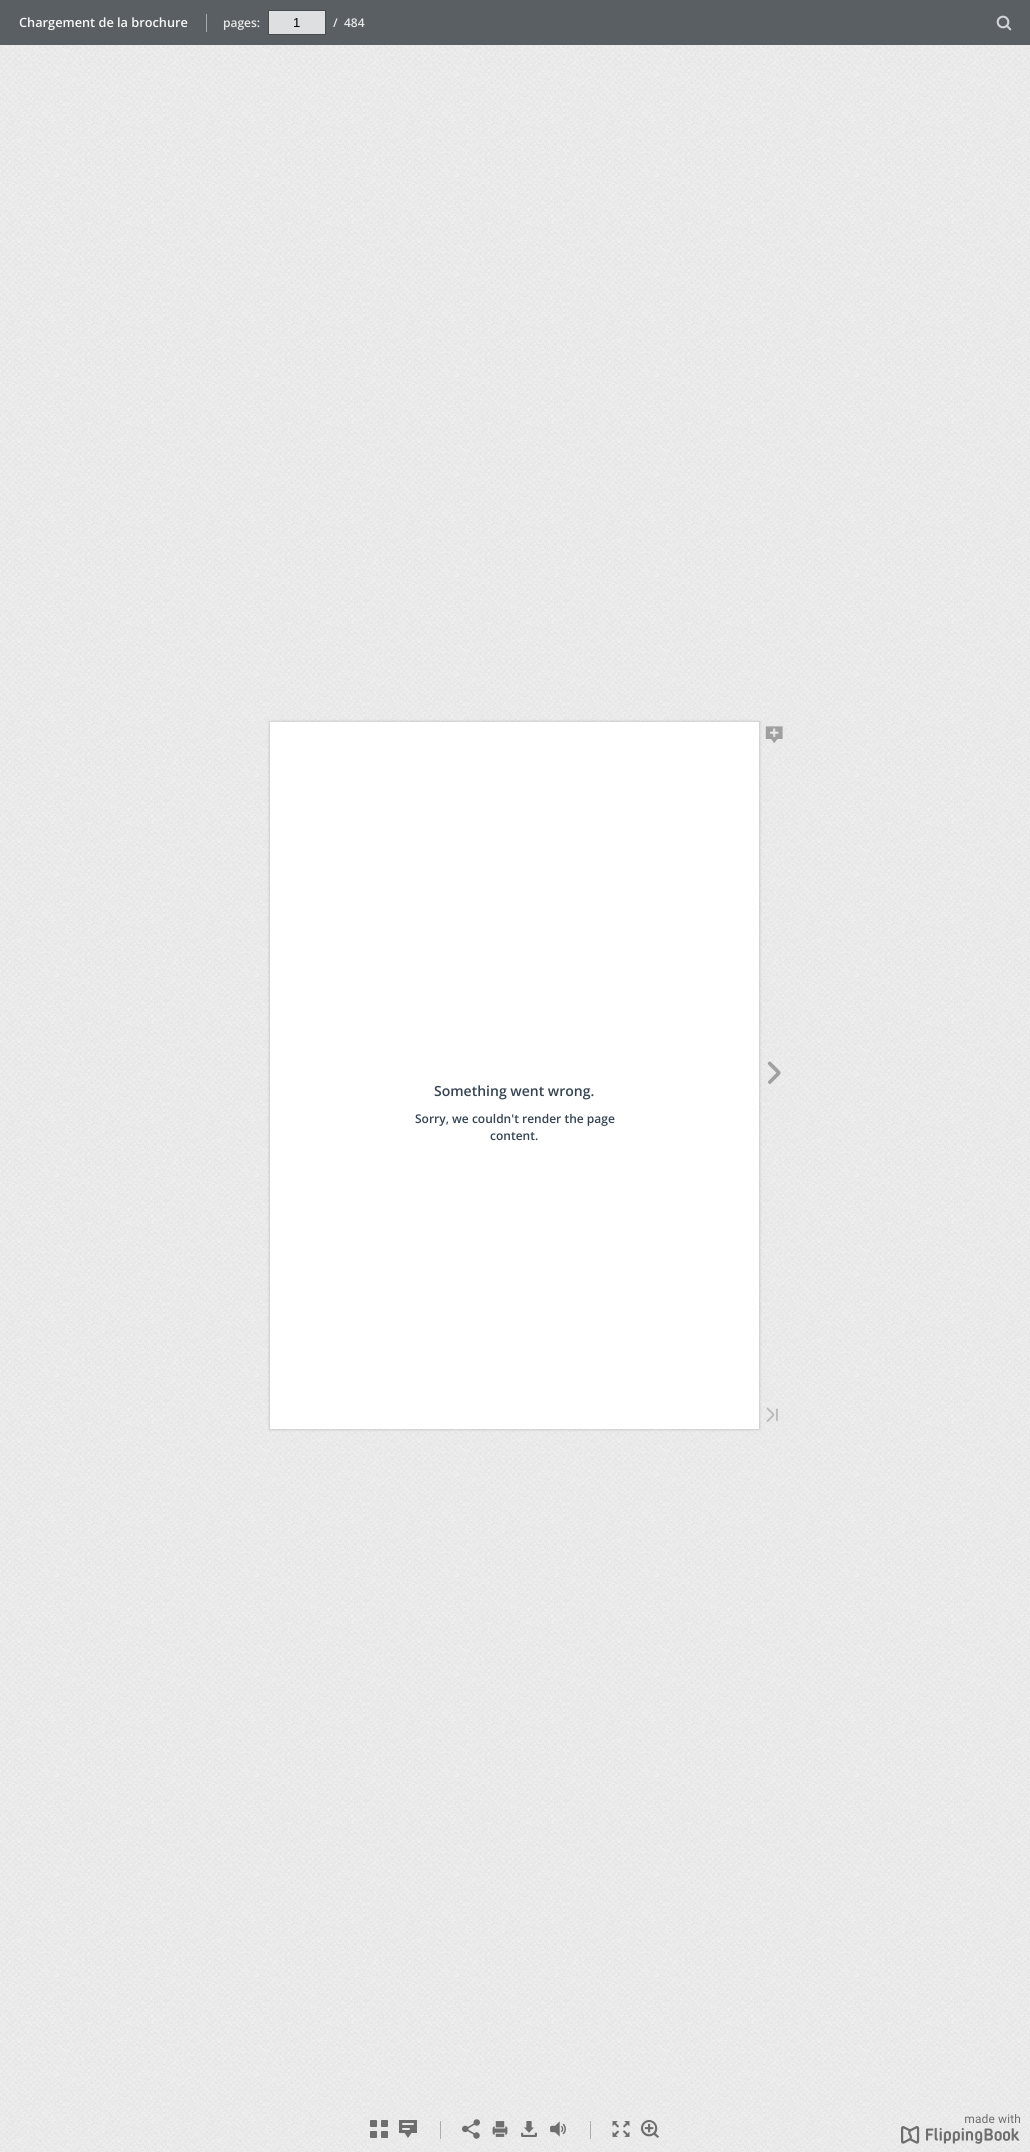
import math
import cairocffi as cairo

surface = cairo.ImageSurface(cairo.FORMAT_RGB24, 1030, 2152)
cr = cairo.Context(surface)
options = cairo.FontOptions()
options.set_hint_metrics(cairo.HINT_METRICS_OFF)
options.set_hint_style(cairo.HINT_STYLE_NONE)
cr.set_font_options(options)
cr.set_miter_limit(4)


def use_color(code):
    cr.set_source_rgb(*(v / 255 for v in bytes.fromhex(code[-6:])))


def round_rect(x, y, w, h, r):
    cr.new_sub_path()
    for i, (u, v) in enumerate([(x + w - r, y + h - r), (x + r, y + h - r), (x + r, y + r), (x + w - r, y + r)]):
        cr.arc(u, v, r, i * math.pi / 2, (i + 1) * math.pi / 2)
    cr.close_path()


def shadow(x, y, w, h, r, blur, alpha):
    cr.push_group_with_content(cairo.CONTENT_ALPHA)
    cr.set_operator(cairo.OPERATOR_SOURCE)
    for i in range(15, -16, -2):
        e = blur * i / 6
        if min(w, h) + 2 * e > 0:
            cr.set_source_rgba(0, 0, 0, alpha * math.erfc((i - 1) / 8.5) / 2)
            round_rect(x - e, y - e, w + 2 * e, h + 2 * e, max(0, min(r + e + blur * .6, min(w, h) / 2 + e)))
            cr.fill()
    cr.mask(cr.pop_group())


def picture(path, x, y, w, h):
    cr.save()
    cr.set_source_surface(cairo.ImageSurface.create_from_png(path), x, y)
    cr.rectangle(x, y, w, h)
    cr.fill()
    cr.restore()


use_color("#f2f2f2")
cr.paint()
picture("img1.png", 0, 45, 1030, 2107)
use_color("#5a5f63")
cr.rectangle(0, 0, 1030, 45)
cr.fill()
cr.select_font_face("Open Sans SemiBold")
cr.set_font_size(12.75)
use_color("#f6f7f7")
cr.move_to(19, 27)
cr.show_text("Chargement de la brochure")
use_color("#a8abad")
cr.rectangle(206, 14, 1, 18)
cr.fill()
cr.set_font_size(12)
use_color("#e6e8e8")
cr.move_to(223, 27)
cr.show_text("pages:")
use_color("#dedfe0")
cr.rectangle(268.5, 10.5, 57, 24)
cr.fill_preserve()
use_color("#484c4f")
cr.set_line_width(1)
cr.stroke()
cr.select_font_face("Liberation Sans")
cr.set_font_size(13)
use_color("#000000")
cr.move_to(293, 27)
cr.show_text("1")
cr.select_font_face("Open Sans SemiBold")
cr.set_font_size(12)
use_color("#e6e8e8")
cr.move_to(333, 27)
cr.show_text("/")
cr.move_to(344, 27)
cr.show_text("484")
picture("img2.png", 996, 15, 16, 16)
use_color("#737373")
shadow(269, 721, 491, 709, 0, 1, 0.25)
picture("img3.png", 765, 726, 18, 17)
picture("img4.png", 767, 1061, 14, 23)
picture("img5.png", 766, 1407, 12, 15)
use_color("#ffffff")
cr.rectangle(270, 722, 489, 707)
cr.fill()
cr.set_font_size(14)
use_color("#354353")
cr.move_to(434, 1096)
cr.show_text("Something went wrong.")
cr.set_font_size(12)
cr.move_to(415, 1123)
cr.show_text("Sorry, we couldn't render the page")
cr.move_to(490, 1140)
cr.show_text("content.")
picture("img6.png", 370, 2120, 18, 18)
picture("img7.png", 399, 2120, 18, 18)
cr.set_source_rgba(0.431, 0.431, 0.431, 0.5)
cr.rectangle(440, 2121, 1, 18)
cr.fill()
picture("img8.png", 462, 2119, 18, 20)
picture("img9.png", 492, 2121, 16, 16)
picture("img10.png", 521, 2121, 16, 16)
picture("img11.png", 550, 2121, 16, 16)
cr.rectangle(590, 2121, 1, 18)
cr.fill()
picture("img12.png", 612, 2121, 18, 16)
picture("img13.png", 641, 2120, 18, 18)
picture("img14.png", 901, 2114, 119, 30)
surface.write_to_png("result.png")
